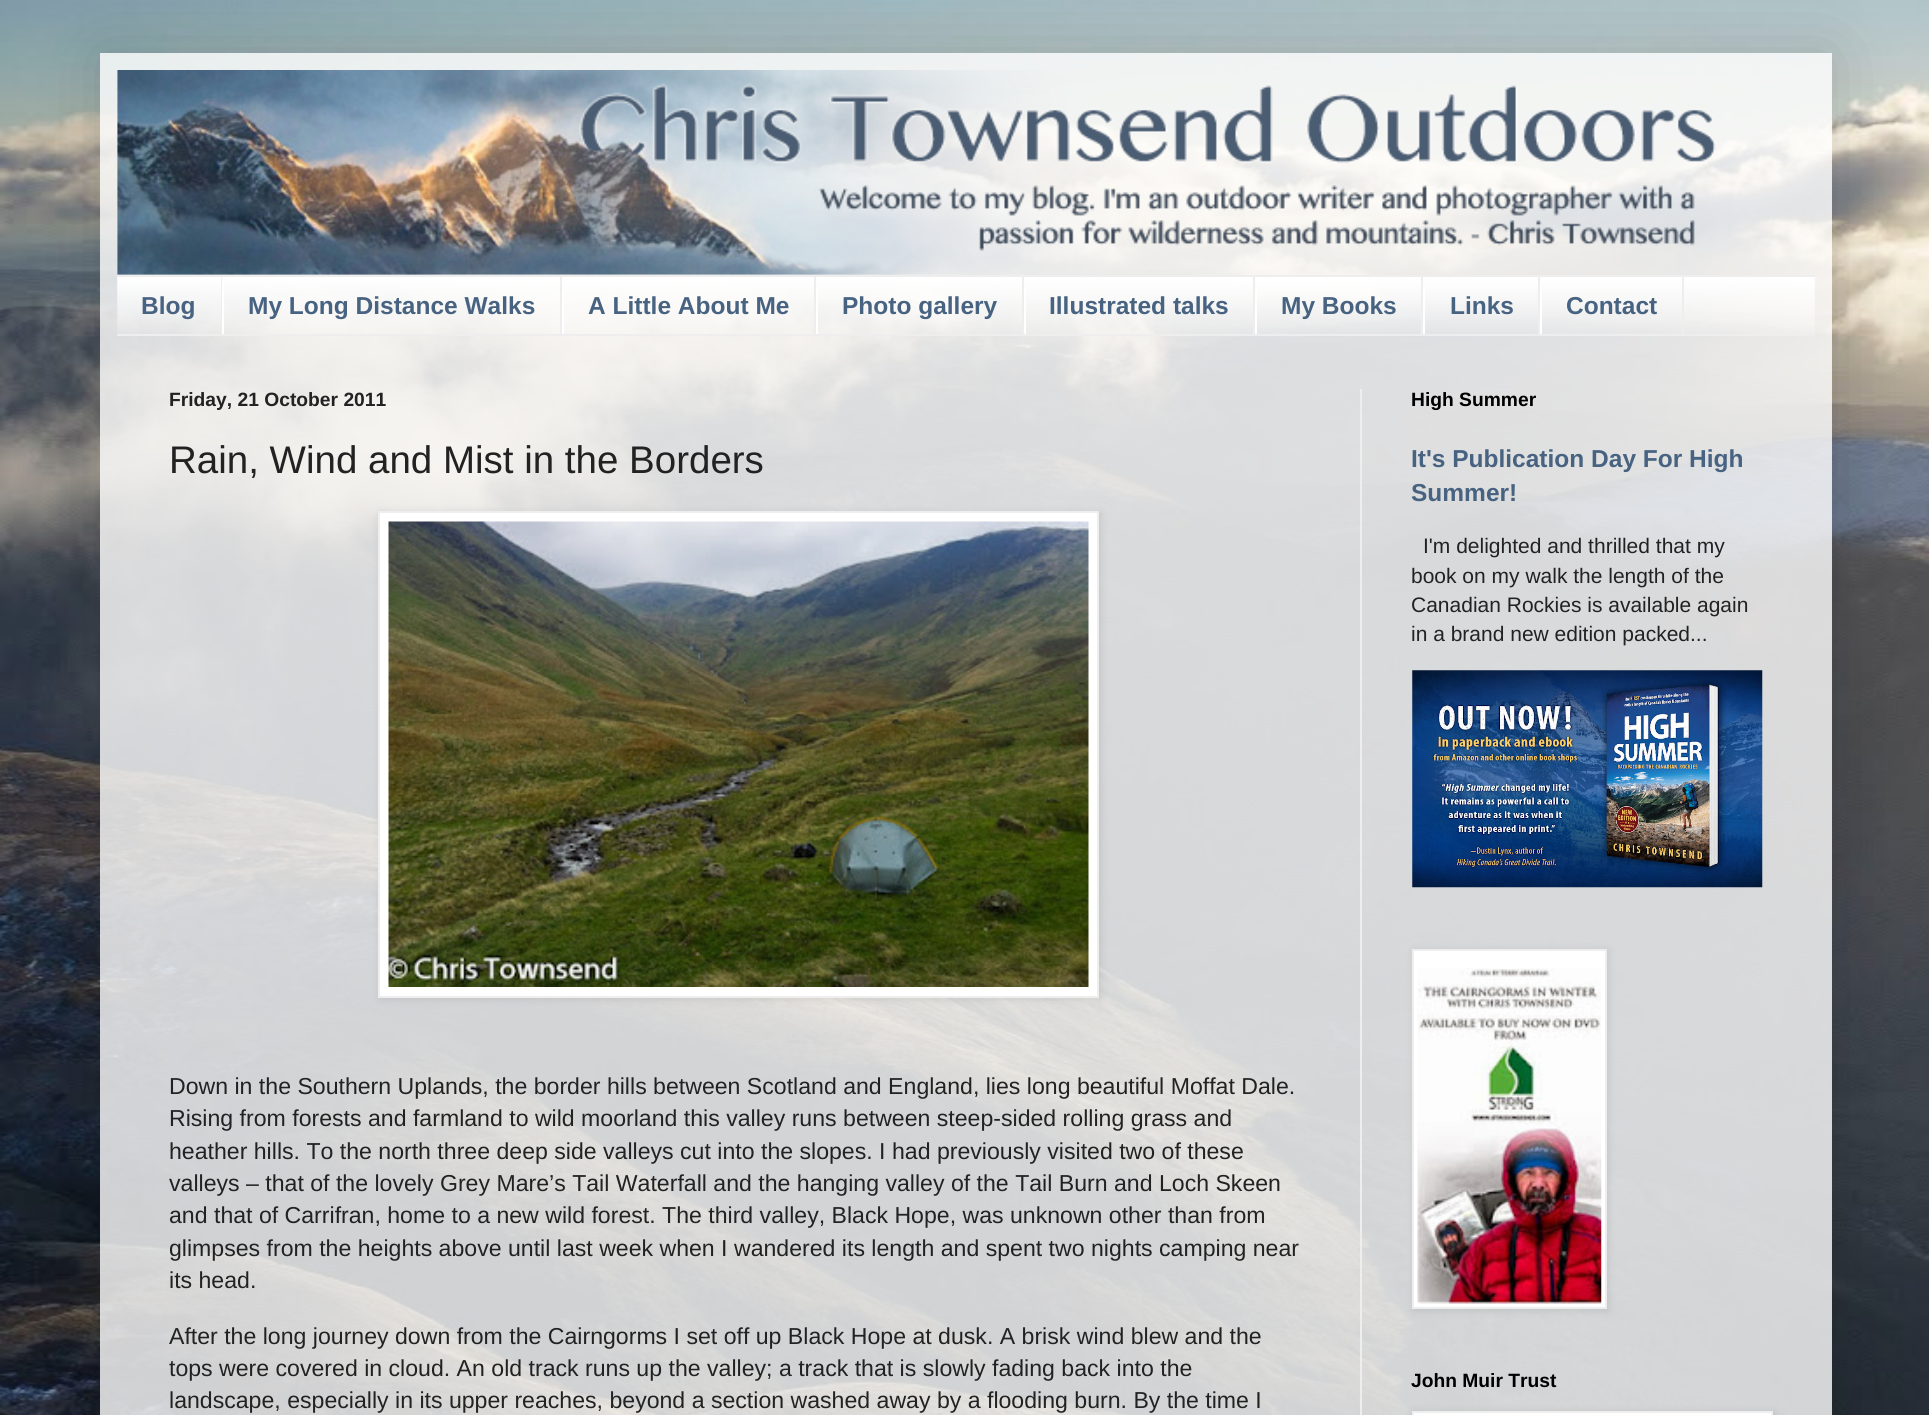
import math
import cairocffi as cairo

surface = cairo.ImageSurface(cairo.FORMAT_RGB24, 1929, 1415)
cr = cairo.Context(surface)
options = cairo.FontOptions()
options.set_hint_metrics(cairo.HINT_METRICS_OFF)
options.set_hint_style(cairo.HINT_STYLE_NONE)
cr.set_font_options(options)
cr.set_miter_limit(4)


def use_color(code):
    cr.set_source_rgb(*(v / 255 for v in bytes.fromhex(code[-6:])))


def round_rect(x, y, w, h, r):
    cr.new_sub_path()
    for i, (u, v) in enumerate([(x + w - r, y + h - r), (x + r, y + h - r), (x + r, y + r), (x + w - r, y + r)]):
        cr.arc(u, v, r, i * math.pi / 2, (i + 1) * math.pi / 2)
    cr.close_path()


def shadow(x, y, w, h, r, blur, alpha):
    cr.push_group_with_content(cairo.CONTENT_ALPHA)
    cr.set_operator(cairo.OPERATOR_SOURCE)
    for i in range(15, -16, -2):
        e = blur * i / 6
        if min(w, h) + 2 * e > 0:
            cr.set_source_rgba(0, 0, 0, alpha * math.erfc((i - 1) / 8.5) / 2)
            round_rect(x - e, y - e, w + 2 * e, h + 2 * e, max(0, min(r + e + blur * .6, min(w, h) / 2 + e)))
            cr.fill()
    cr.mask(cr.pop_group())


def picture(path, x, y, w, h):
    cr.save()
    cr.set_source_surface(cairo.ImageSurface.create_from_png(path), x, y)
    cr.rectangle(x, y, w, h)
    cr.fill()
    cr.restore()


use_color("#ffffff")
cr.paint()
picture("img1.png", 0, 700, 1929, 715)
picture("img2.png", 0, 0, 1929, 700)
cr.save()
cr.set_fill_rule(cairo.FILL_RULE_EVEN_ODD)
cr.new_path()
cr.move_to(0, 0)
cr.line_to(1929, 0)
cr.line_to(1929, 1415)
cr.line_to(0, 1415)
cr.close_path()
cr.move_to(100, 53)
cr.line_to(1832, 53)
cr.line_to(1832, 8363)
cr.line_to(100, 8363)
cr.close_path()
cr.clip()
use_color("#000000")
shadow(100, 53, 1732, 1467, 0, 35, 0.15)
cr.restore()
cr.set_source_rgba(1, 1, 1, 0.8)
cr.rectangle(100, 53, 1732, 1362)
cr.fill()
picture("img3.png", 117, 70, 1599, 205)
picture("img4.png", 117, 277, 1698, 57)
use_color("#eeeeee")
cr.rectangle(117, 275, 1698, 2)
cr.fill()
cr.rectangle(117, 334, 1698, 2)
cr.fill()
cr.rectangle(221, 277, 1, 57)
cr.fill()
cr.select_font_face("Liberation Sans", cairo.FONT_SLANT_NORMAL, cairo.FONT_WEIGHT_BOLD)
cr.set_font_size(24.5)
use_color("#476381")
cr.move_to(141, 314)
cr.show_text("Blog")
use_color("#eeeeee")
cr.rectangle(560, 277, 2, 57)
cr.fill()
use_color("#ffffff")
cr.rectangle(222, 277, 2, 57)
cr.fill()
use_color("#476381")
cr.move_to(248, 314)
cr.show_text("My Long Distance Walks")
use_color("#eeeeee")
cr.rectangle(814, 277, 2, 57)
cr.fill()
use_color("#ffffff")
cr.rectangle(562, 290, 2, 44)
cr.fill()
use_color("#476381")
cr.move_to(588, 314)
cr.show_text("A Little About Me")
use_color("#eeeeee")
cr.rectangle(1022, 277, 2, 57)
cr.fill()
use_color("#ffffff")
cr.rectangle(816, 287, 2, 47)
cr.fill()
use_color("#476381")
cr.move_to(842, 314)
cr.show_text("Photo gallery")
use_color("#eeeeee")
cr.rectangle(1253, 277, 2, 57)
cr.fill()
use_color("#ffffff")
cr.rectangle(1024, 287, 2, 47)
cr.fill()
use_color("#476381")
cr.move_to(1049, 314)
cr.show_text("Illustrated talks")
use_color("#eeeeee")
cr.rectangle(1421, 277, 2, 57)
cr.fill()
use_color("#ffffff")
cr.rectangle(1255, 288, 2, 46)
cr.fill()
use_color("#476381")
cr.move_to(1281, 314)
cr.show_text("My Books")
use_color("#eeeeee")
cr.rectangle(1538, 277, 2, 57)
cr.fill()
use_color("#ffffff")
cr.rectangle(1423, 286, 2, 48)
cr.fill()
use_color("#476381")
cr.move_to(1450, 314)
cr.show_text("Links")
use_color("#eeeeee")
cr.rectangle(1682, 277, 2, 57)
cr.fill()
use_color("#ffffff")
cr.rectangle(1540, 286, 2, 48)
cr.fill()
use_color("#476381")
cr.move_to(1566, 314)
cr.show_text("Contact")
use_color("#eeeeee")
cr.rectangle(1360, 389, 2, 1026)
cr.fill()
cr.set_font_size(19.25)
use_color("#222222")
cr.move_to(169, 406)
cr.show_text("Friday, 21 October 2011")
cr.select_font_face("Liberation Sans")
cr.set_font_size(38.5)
cr.move_to(169, 473)
cr.show_text("Rain, Wind and Mist in the Borders")
use_color("#000000")
shadow(380, 513, 721, 486, 0, 4.5, 0.1)
use_color("#ffffff")
cr.rectangle(379, 512, 719, 485)
cr.fill_preserve()
use_color("#eeeeee")
cr.stroke()
picture("img5.png", 388, 521, 701, 466)
cr.set_font_size(23.1)
use_color("#222222")
cr.move_to(169, 1094)
cr.show_text("Down in the Southern Uplands, the border hills between Scotland and England, lies long beautiful Moffat Dale.")
cr.move_to(169, 1126)
cr.show_text("Rising from forests and farmland to wild moorland this valley runs between steep-sided rolling grass and")
cr.move_to(169, 1159)
cr.show_text("heather hills. To the north three deep side valleys cut into the slopes. I had previously visited two of these")
cr.move_to(169, 1191)
cr.show_text("valleys – that of the lovely Grey Mare’s Tail Waterfall and the hanging valley of the Tail Burn and Loch Skeen")
cr.move_to(169, 1223)
cr.show_text("and that of Carrifran, home to a new wild forest. The third valley, Black Hope, was unknown other than from")
cr.move_to(169, 1256)
cr.show_text("glimpses from the heights above until last week when I wandered its length and spent two nights camping near")
cr.move_to(169, 1288)
cr.show_text("its head.")
cr.move_to(169, 1344)
cr.show_text("After the long journey down from the Cairngorms I set off up Black Hope at dusk. A brisk wind blew and the")
cr.move_to(169, 1376)
cr.show_text("tops were covered in cloud. An old track runs up the valley; a track that is slowly fading back into the")
cr.move_to(169, 1408)
cr.show_text("landscape, especially in its upper reaches, beyond a section washed away by a flooding burn. By the time I")
cr.select_font_face("Liberation Sans", cairo.FONT_SLANT_NORMAL, cairo.FONT_WEIGHT_BOLD)
cr.set_font_size(19.25)
use_color("#000000")
cr.move_to(1411, 406)
cr.show_text("High Summer")
cr.set_font_size(24.5)
use_color("#476381")
cr.move_to(1411, 467)
cr.show_text("It's Publication Day For High")
cr.move_to(1411, 501)
cr.show_text("Summer!")
cr.select_font_face("Liberation Sans")
cr.set_font_size(21)
use_color("#222222")
cr.move_to(1423, 553)
cr.show_text("I'm delighted and thrilled that my")
cr.move_to(1411, 583)
cr.show_text("book on my walk the length of the")
cr.move_to(1411, 612)
cr.show_text("Canadian Rockies is available again")
cr.move_to(1411, 641)
cr.show_text("in a brand new edition packed...")
picture("img6.png", 1412, 670, 351, 218)
use_color("#000000")
shadow(1414, 950, 194, 361, 0, 4.5, 0.1)
use_color("#ffffff")
cr.rectangle(1413, 950, 193, 358)
cr.fill_preserve()
use_color("#eeeeee")
cr.stroke()
picture("img7.png", 1417, 968, 185, 336)
cr.select_font_face("Liberation Sans", cairo.FONT_SLANT_NORMAL, cairo.FONT_WEIGHT_BOLD)
cr.set_font_size(19.25)
use_color("#000000")
cr.move_to(1411, 1387)
cr.show_text("John Muir Trust")
use_color("#000000")
shadow(1414, 1412, 361, 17, 0, 4.5, 0.1)
use_color("#ffffff")
cr.rectangle(1413, 1412, 359, 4)
cr.fill_preserve()
use_color("#eeeeee")
cr.stroke()
surface.write_to_png("result.png")
